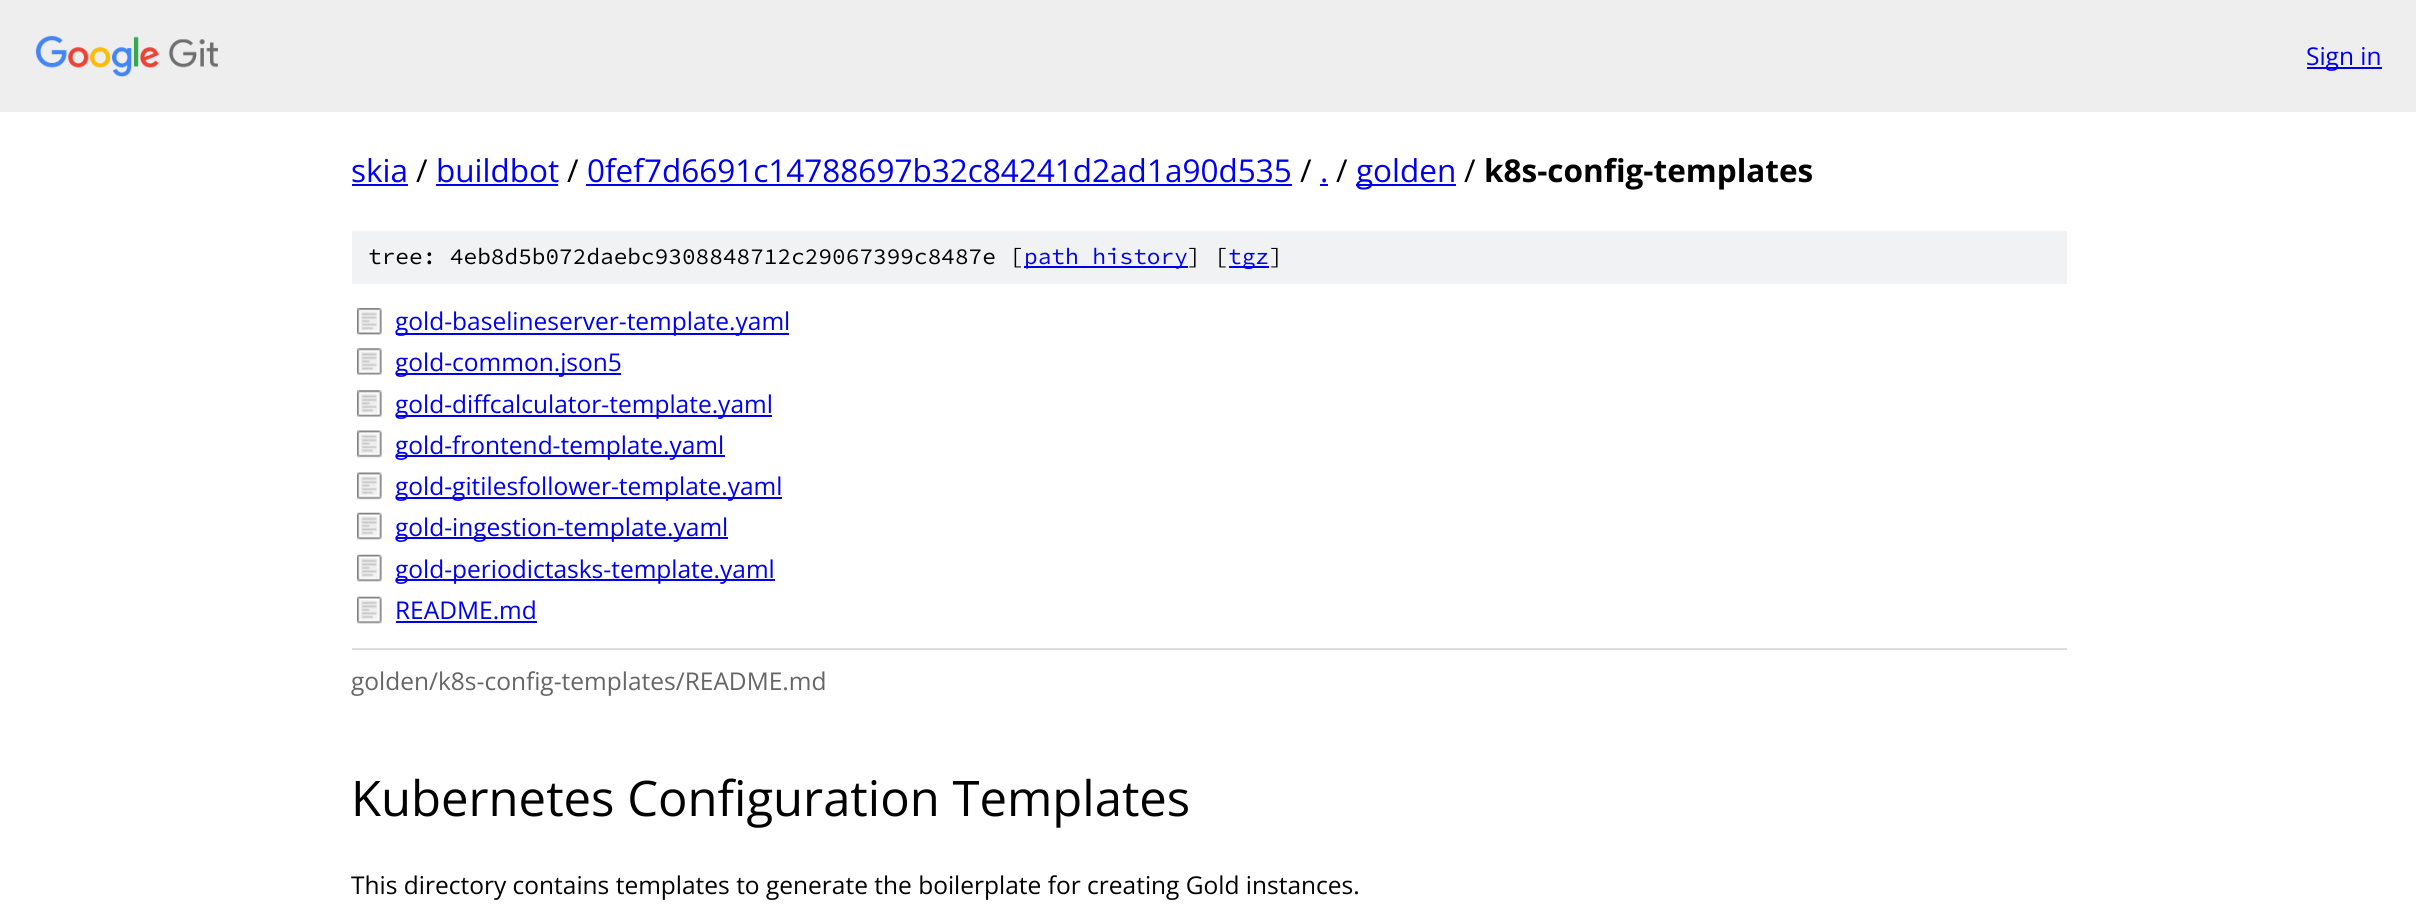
import math
import cairocffi as cairo

surface = cairo.ImageSurface(cairo.FORMAT_RGB24, 2416, 920)
cr = cairo.Context(surface)
options = cairo.FontOptions()
options.set_hint_metrics(cairo.HINT_METRICS_OFF)
options.set_hint_style(cairo.HINT_STYLE_NONE)
cr.set_font_options(options)
cr.set_miter_limit(4)


def use_color(code):
    cr.set_source_rgb(*(v / 255 for v in bytes.fromhex(code[-6:])))


def picture(path, x, y, w, h):
    cr.save()
    cr.set_source_surface(cairo.ImageSurface.create_from_png(path), x, y)
    cr.rectangle(x, y, w, h)
    cr.fill()
    cr.restore()


use_color("#ffffff")
cr.paint()
use_color("#eeeeee")
cr.rectangle(0, 0, 2416, 112)
cr.fill()
picture("img1.png", 35, 35, 183, 42)
use_color("#0000ee")
cr.rectangle(2307, 67, 75, 2)
cr.fill()
cr.select_font_face("Open Sans")
cr.set_font_size(24.5)
cr.move_to(2306, 65)
cr.show_text("Sign in")
cr.set_font_size(31.5)
cr.move_to(351, 182)
cr.show_text("skia")
cr.rectangle(352, 184, 56, 2)
cr.fill()
use_color("#000000")
cr.move_to(416, 182)
cr.show_text("/")
use_color("#0000ee")
cr.move_to(436, 182)
cr.show_text("buildbot")
cr.rectangle(436, 184, 122, 2)
cr.fill()
use_color("#000000")
cr.move_to(567, 182)
cr.show_text("/")
use_color("#0000ee")
cr.move_to(587, 182)
cr.show_text("0fef7d6691c14788697b32c84241d2ad1a90d535")
cr.rectangle(586, 184, 706, 2)
cr.fill()
use_color("#000000")
cr.move_to(1300, 182)
cr.show_text("/")
use_color("#0000ee")
cr.move_to(1320, 182)
cr.show_text(".")
cr.rectangle(1320, 184, 8, 2)
cr.fill()
use_color("#000000")
cr.move_to(1336, 182)
cr.show_text("/")
use_color("#0000ee")
cr.rectangle(1356, 184, 100, 2)
cr.fill()
cr.move_to(1356, 182)
cr.show_text("golden")
use_color("#000000")
cr.move_to(1464, 182)
cr.show_text("/")
cr.select_font_face("Open Sans", cairo.FONT_SLANT_NORMAL, cairo.FONT_WEIGHT_BOLD)
cr.move_to(1484, 182)
cr.show_text("k8s-config-templates")
use_color("#f1f2f3")
cr.rectangle(352, 231, 1715, 53)
cr.fill()
cr.select_font_face("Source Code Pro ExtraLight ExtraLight")
cr.set_font_size(22.75)
use_color("#000000")
cr.move_to(368, 264)
cr.show_text("tree: 4eb8d5b072daebc9308848712c29067399c8487e [")
use_color("#0000ee")
cr.rectangle(1024, 266, 164, 2)
cr.fill()
cr.move_to(1024, 264)
cr.show_text("path history")
use_color("#000000")
cr.move_to(1187, 264)
cr.show_text("] [")
use_color("#0000ee")
cr.rectangle(1229, 266, 40, 2)
cr.fill()
cr.move_to(1228, 264)
cr.show_text("tgz")
use_color("#000000")
cr.move_to(1269, 264)
cr.show_text("]")
picture("img2.png", 357, 308, 25, 27)
use_color("#0000ee")
cr.rectangle(396, 333, 393, 2)
cr.fill()
cr.select_font_face("Open Sans")
cr.set_font_size(24.5)
cr.move_to(395, 330)
cr.show_text("gold-baselineserver-template.yaml")
picture("img3.png", 357, 348, 25, 27)
cr.rectangle(396, 373, 225, 2)
cr.fill()
cr.move_to(395, 371)
cr.show_text("gold-common.json5")
picture("img3.png", 357, 390, 25, 27)
cr.rectangle(396, 415, 376, 2)
cr.fill()
cr.move_to(395, 413)
cr.show_text("gold-diffcalculator-template.yaml")
picture("img4.png", 357, 430, 25, 28)
cr.rectangle(396, 455, 329, 2)
cr.fill()
cr.move_to(395, 454)
cr.show_text("gold-frontend-template.yaml")
picture("img4.png", 357, 472, 25, 28)
cr.rectangle(396, 497, 386, 2)
cr.fill()
cr.move_to(395, 495)
cr.show_text("gold-gitilesfollower-template.yaml")
picture("img5.png", 357, 512, 25, 28)
cr.rectangle(396, 537, 332, 2)
cr.fill()
cr.move_to(395, 536)
cr.show_text("gold-ingestion-template.yaml")
picture("img5.png", 357, 554, 25, 28)
cr.rectangle(396, 579, 379, 2)
cr.fill()
cr.move_to(395, 578)
cr.show_text("gold-periodictasks-template.yaml")
picture("img5.png", 357, 596, 25, 28)
cr.move_to(395, 619)
cr.show_text("README.md")
cr.rectangle(396, 621, 141, 2)
cr.fill()
use_color("#dddddd")
cr.rectangle(352, 648, 1715, 2)
cr.fill()
use_color("#666666")
cr.move_to(351, 690)
cr.show_text("golden/k8s-config-templates/README.md")
cr.set_font_size(49)
use_color("#000000")
cr.move_to(351, 816)
cr.show_text("Kubernetes Configuration Templates")
cr.set_font_size(24.5)
cr.move_to(351, 894)
cr.show_text("This directory contains templates to generate the boilerplate for creating Gold instances.")
surface.write_to_png("result.png")
